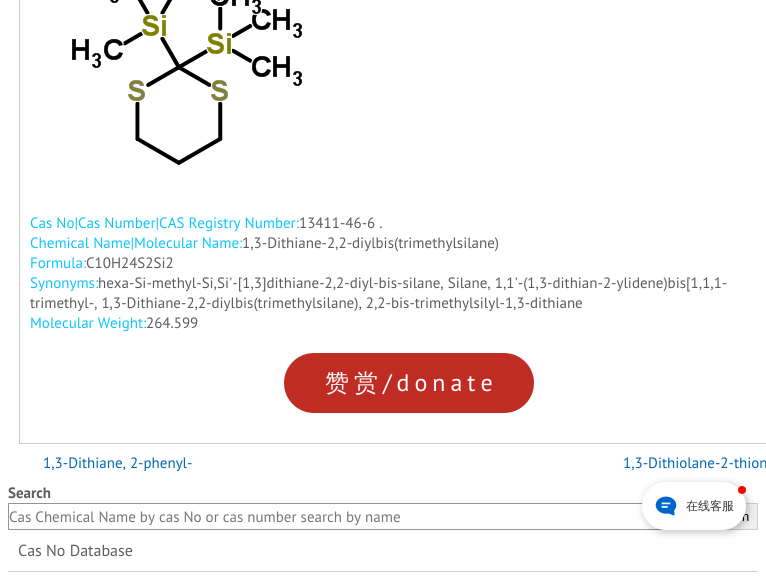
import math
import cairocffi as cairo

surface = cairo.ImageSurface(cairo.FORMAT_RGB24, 766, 580)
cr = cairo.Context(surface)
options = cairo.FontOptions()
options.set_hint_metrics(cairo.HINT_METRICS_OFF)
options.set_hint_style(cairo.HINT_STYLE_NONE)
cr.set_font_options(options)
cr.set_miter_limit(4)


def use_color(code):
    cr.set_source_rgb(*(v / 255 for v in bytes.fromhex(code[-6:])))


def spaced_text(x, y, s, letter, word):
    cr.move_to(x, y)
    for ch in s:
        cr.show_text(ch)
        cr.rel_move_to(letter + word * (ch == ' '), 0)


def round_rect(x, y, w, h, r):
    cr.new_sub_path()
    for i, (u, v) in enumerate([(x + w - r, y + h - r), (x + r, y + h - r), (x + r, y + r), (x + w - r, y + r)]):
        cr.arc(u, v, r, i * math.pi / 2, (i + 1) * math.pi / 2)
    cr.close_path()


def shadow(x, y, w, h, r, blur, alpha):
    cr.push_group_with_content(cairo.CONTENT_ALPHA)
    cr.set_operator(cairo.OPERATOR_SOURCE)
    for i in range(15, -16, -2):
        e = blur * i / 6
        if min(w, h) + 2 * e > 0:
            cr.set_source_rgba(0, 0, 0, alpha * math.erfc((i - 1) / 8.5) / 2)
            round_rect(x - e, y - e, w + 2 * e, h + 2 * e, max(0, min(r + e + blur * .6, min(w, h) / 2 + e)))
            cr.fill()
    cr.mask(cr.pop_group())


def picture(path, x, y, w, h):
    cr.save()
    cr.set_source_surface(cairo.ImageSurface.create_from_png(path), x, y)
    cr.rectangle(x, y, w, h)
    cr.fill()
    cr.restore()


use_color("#ffffff")
cr.paint()
cr.rectangle(19.5, -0.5, 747, 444)
use_color("#cccccc")
cr.set_line_width(1)
cr.stroke()
picture("img1.png", 72, 0, 230, 165)
cr.select_font_face("PT Sans")
cr.set_font_size(15)
use_color("#0bc6fa")
cr.move_to(30, 228)
cr.show_text("Cas No|Cas Number|CAS Registry Number:")
use_color("#5c5c5c")
cr.move_to(299, 228)
cr.show_text("13411-46-6 .")
use_color("#0bc6fa")
cr.move_to(30, 248)
cr.show_text("Chemical Name|Molecular Name:")
use_color("#5c5c5c")
cr.move_to(242, 248)
cr.show_text("1,3-Dithiane-2,2-diylbis(trimethylsilane)")
use_color("#0bc6fa")
cr.move_to(30, 268)
cr.show_text("Formula:")
use_color("#5c5c5c")
cr.move_to(86, 268)
cr.show_text("C10H24S2Si2")
use_color("#0bc6fa")
cr.move_to(30, 288)
cr.show_text("Synonyms:")
use_color("#5c5c5c")
cr.move_to(98, 288)
cr.show_text("hexa-Si-methyl-Si,Si'-[1,3]dithiane-2,2-diyl-bis-silane, Silane, 1,1'-(1,3-dithian-2-ylidene)bis[1,1,1-")
cr.move_to(30, 308)
cr.show_text("trimethyl-, 1,3-Dithiane-2,2-diylbis(trimethylsilane), 2,2-bis-trimethylsilyl-1,3-dithiane")
use_color("#0bc6fa")
cr.move_to(30, 328)
cr.show_text("Molecular Weight:")
use_color("#5c5c5c")
cr.move_to(146, 328)
cr.show_text("264.599")
use_color("#bf2c24")
round_rect(284, 353, 250, 60, 30)
cr.fill()
cr.select_font_face("WenQuanYi Zen Hei Medium")
cr.set_font_size(24)
use_color("#ffffff")
spaced_text(325, 391, "赞赏", 5, 0)
cr.select_font_face("PT Sans")
spaced_text(383, 391, "/donate", 5, 0)
cr.set_font_size(15)
use_color("#0065b3")
cr.move_to(43, 468)
cr.show_text("1,3-Dithiane, 2-phenyl-")
cr.move_to(623, 468)
cr.show_text("1,3-Dithiolane-2-thion")
cr.select_font_face("PT Sans", cairo.FONT_SLANT_NORMAL, cairo.FONT_WEIGHT_BOLD)
use_color("#5c5c5c")
cr.move_to(8, 498)
cr.show_text("Search")
cr.rectangle(8.5, 503.5, 678, 26)
use_color("#949494")
cr.stroke()
cr.select_font_face("PT Sans")
use_color("#757575")
cr.move_to(9, 522)
cr.show_text("Cas Chemical Name by cas No or cas number search by name")
use_color("#efefef")
cr.rectangle(729, 504, 28, 25)
cr.fill()
cr.rectangle(697.5, 503.5, 60, 26)
use_color("#cccccc")
cr.stroke()
cr.select_font_face("Liberation Sans")
cr.set_font_size(13)
use_color("#000000")
cr.move_to(742, 521)
cr.show_text("h")
use_color("#d0cfcf")
cr.rectangle(8, 571, 750, 1)
cr.fill()
cr.select_font_face("PT Sans")
cr.set_font_size(16)
use_color("#5c5c5c")
cr.move_to(18, 556)
cr.show_text("Cas No Database")
use_color("#000000")
shadow(644, 484, 104, 48, 24, 4, 0.25)
use_color("#ffffff")
round_rect(642, 482, 104, 48, 24)
cr.fill()
use_color("#ff0000")
cr.arc(742, 490, 4, 0, 2 * math.pi)
cr.fill()
picture("img2.png", 655, 496, 22, 20)
cr.select_font_face("WenQuanYi Zen Hei Medium")
cr.set_font_size(12)
use_color("#333333")
cr.move_to(686, 510)
cr.show_text("在线客服")
surface.write_to_png("result.png")
